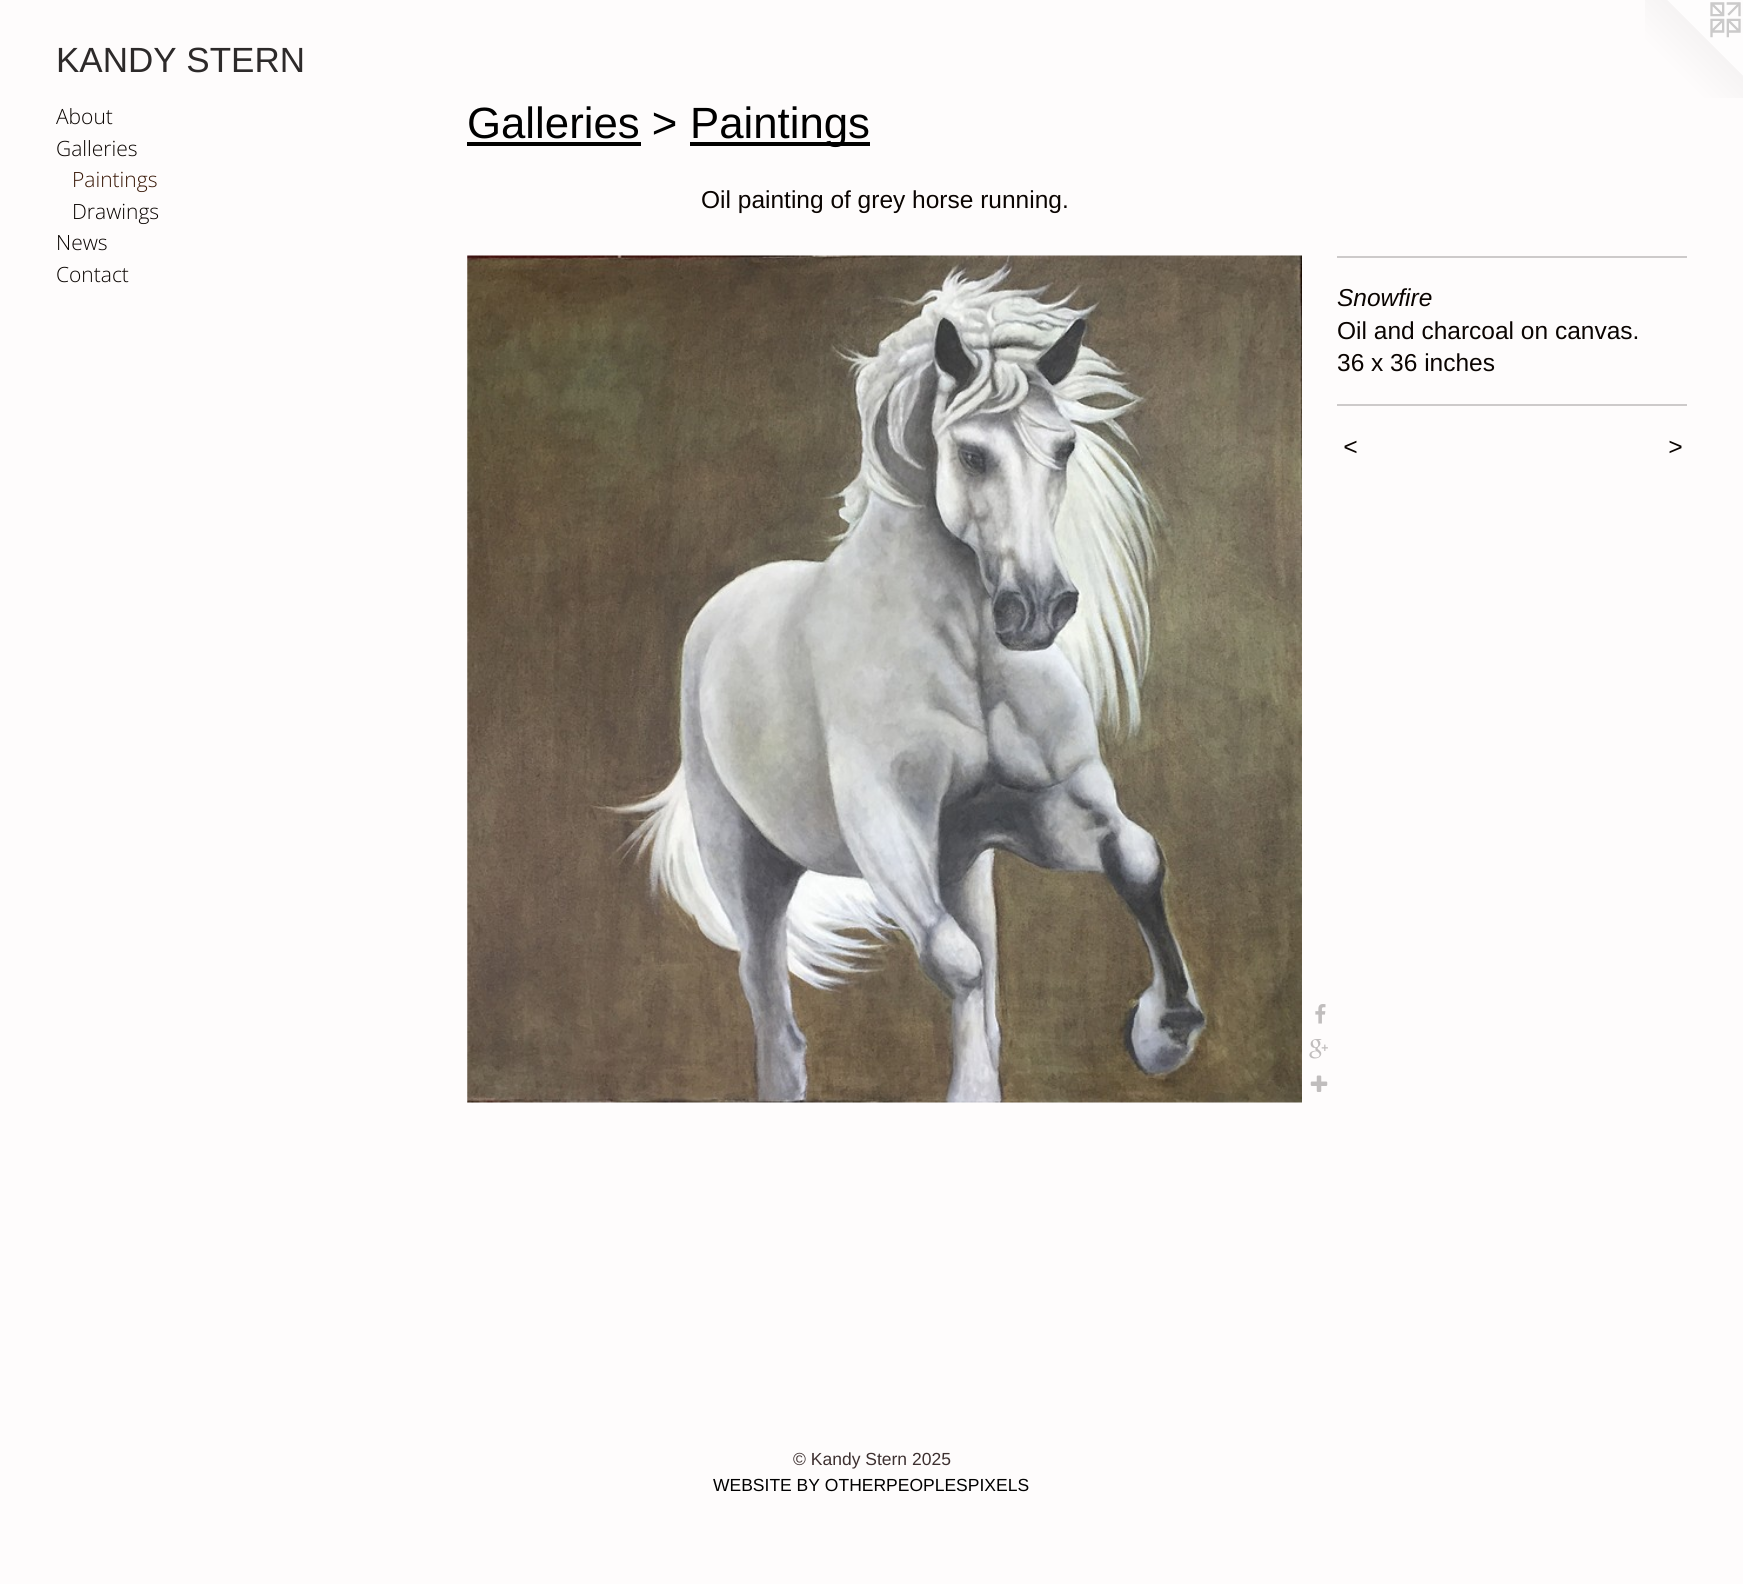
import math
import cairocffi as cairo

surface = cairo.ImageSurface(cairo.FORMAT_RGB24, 1743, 1584)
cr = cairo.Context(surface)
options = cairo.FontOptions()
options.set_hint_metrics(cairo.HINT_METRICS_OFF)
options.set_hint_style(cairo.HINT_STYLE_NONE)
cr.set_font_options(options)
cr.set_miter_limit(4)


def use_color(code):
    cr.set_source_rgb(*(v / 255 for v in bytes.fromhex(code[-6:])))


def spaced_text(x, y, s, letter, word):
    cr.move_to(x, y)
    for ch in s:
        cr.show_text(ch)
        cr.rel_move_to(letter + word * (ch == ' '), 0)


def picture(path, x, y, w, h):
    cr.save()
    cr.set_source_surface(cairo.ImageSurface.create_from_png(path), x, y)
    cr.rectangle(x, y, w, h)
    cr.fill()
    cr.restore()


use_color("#fefcfc")
cr.paint()
cr.select_font_face("Liberation Sans")
cr.set_font_size(35)
use_color("#2d2a2a")
cr.move_to(56, 72)
cr.show_text("KANDY STERN")
picture("img1.png", 1645, 0, 98, 98)
cr.select_font_face("Open Sans Light")
cr.set_font_size(21)
use_color("#0a0401")
cr.move_to(56, 124)
cr.show_text("About")
cr.move_to(56, 156)
cr.show_text("Galleries")
use_color("#381706")
cr.move_to(72, 187)
cr.show_text("Paintings")
use_color("#0a0401")
cr.move_to(72, 219)
cr.show_text("Drawings")
cr.move_to(56, 250)
cr.show_text("News")
cr.move_to(56, 282)
cr.show_text("Contact")
cr.select_font_face("Liberation Sans")
cr.set_font_size(43.75)
use_color("#000000")
cr.move_to(467, 138)
cr.show_text("Galleries >")
use_color("#020100")
cr.rectangle(467, 142, 174, 4)
cr.fill()
cr.rectangle(690, 142, 180, 4)
cr.fill()
use_color("#000000")
cr.move_to(690, 138)
cr.show_text("Paintings")
cr.set_font_size(24.5)
use_color("#0a0401")
cr.move_to(701, 208)
cr.show_text("Oil painting of grey horse running.")
picture("img2.png", 467, 255, 835, 848)
picture("img3.png", 1315, 1004, 11, 20)
picture("img4.png", 1309, 1039, 19, 20)
picture("img5.png", 1310, 1075, 18, 17)
use_color("#cdcaca")
cr.rectangle(1337, 256, 350, 2)
cr.fill()
cr.select_font_face("Liberation Sans", cairo.FONT_SLANT_ITALIC)
use_color("#0a0401")
cr.move_to(1337, 306)
cr.show_text("Snowfire")
cr.select_font_face("Liberation Sans")
cr.move_to(1337, 339)
cr.show_text("Oil and charcoal on canvas.")
cr.move_to(1337, 371)
cr.show_text("36 x 36 inches")
use_color("#cdcaca")
cr.rectangle(1337, 404, 350, 2)
cr.fill()
cr.select_font_face("Liberation Sans", cairo.FONT_SLANT_ITALIC)
use_color("#0a0401")
spaced_text(1343, 455, "<", 2, 0)
spaced_text(1668, 455, ">", 2, 0)
cr.select_font_face("Liberation Sans")
cr.set_font_size(17.5)
use_color("#3d3030")
cr.move_to(793, 1465)
cr.show_text("© Kandy Stern 2025")
use_color("#000000")
cr.move_to(713, 1491)
cr.show_text("WEBSITE BY OTHERPEOPLESPIXELS")
surface.write_to_png("result.png")
